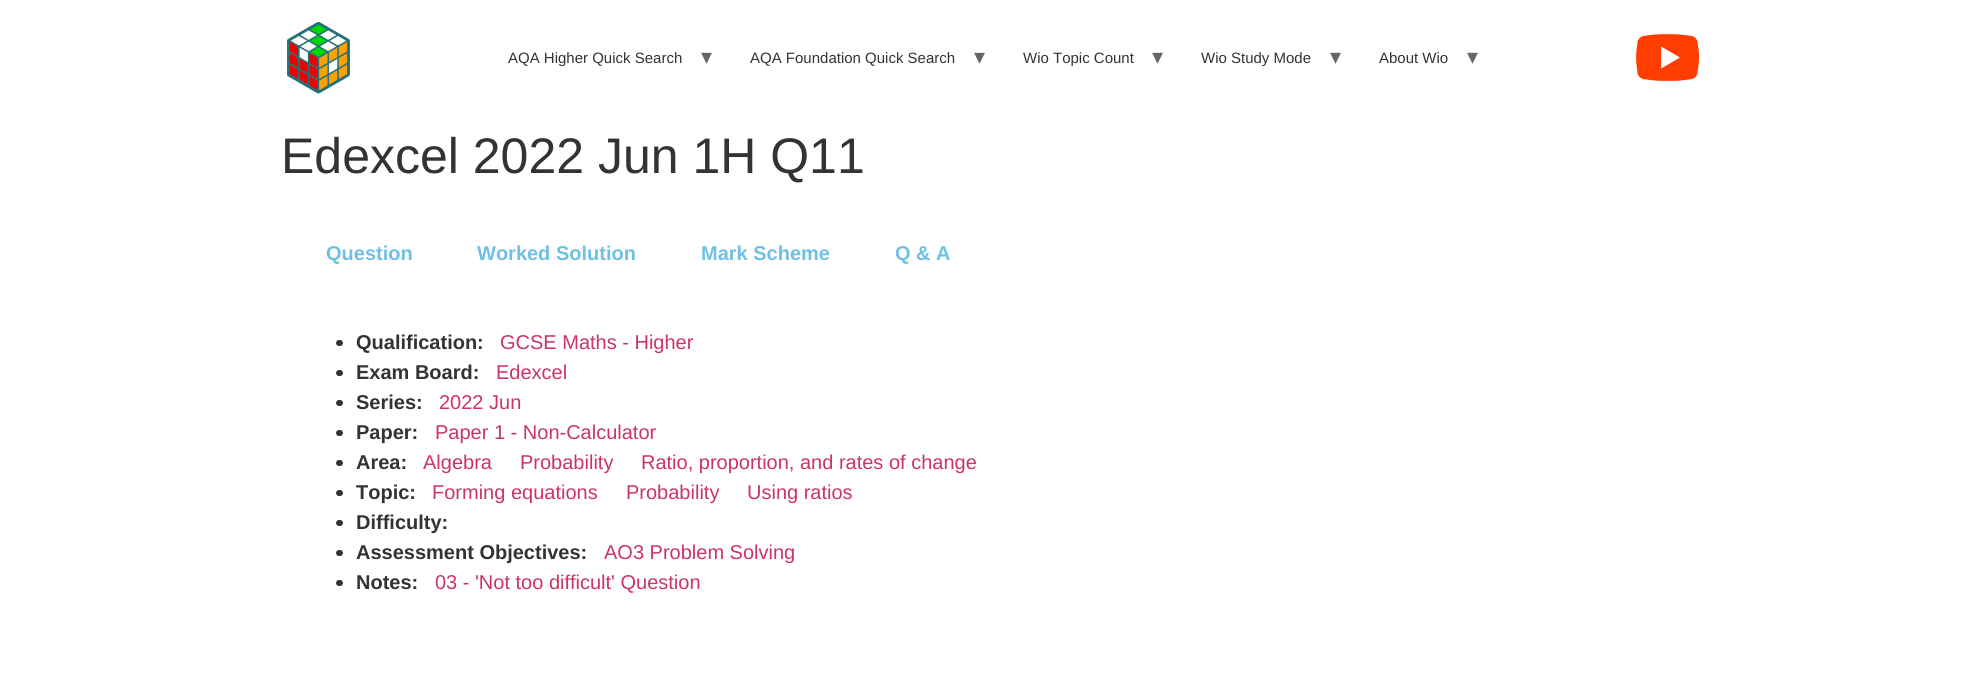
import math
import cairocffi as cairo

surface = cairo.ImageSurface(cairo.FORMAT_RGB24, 1986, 689)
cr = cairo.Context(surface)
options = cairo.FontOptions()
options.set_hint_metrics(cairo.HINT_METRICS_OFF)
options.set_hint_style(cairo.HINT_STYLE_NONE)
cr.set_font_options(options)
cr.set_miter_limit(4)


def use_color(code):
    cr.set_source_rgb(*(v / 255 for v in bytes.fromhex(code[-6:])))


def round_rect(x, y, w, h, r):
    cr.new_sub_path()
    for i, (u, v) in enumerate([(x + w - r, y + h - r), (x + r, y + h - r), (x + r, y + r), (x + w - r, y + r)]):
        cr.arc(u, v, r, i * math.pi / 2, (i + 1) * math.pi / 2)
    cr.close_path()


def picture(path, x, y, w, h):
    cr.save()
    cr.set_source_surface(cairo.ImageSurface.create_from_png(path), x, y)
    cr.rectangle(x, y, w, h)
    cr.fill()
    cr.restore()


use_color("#ffffff")
cr.paint()
picture("img1.png", 287, 21, 63, 73)
cr.select_font_face("Liberation Sans")
cr.set_font_size(15)
use_color("#333333")
cr.move_to(508, 63)
cr.show_text("AQA Higher Quick Search")
cr.select_font_face("DejaVu Sans")
cr.set_font_size(22)
use_color("#666666")
cr.move_to(701, 64)
cr.show_text("▾")
cr.select_font_face("Liberation Sans")
cr.set_font_size(15)
use_color("#333333")
cr.move_to(750, 63)
cr.show_text("AQA Foundation Quick Search")
cr.select_font_face("DejaVu Sans")
cr.set_font_size(22)
use_color("#666666")
cr.move_to(974, 64)
cr.show_text("▾")
cr.select_font_face("Liberation Sans")
cr.set_font_size(15)
use_color("#333333")
cr.move_to(1023, 63)
cr.show_text("Wio Topic Count")
cr.select_font_face("DejaVu Sans")
cr.set_font_size(22)
use_color("#666666")
cr.move_to(1152, 64)
cr.show_text("▾")
cr.select_font_face("Liberation Sans")
cr.set_font_size(15)
use_color("#333333")
cr.move_to(1201, 63)
cr.show_text("Wio Study Mode")
cr.select_font_face("DejaVu Sans")
cr.set_font_size(22)
use_color("#666666")
cr.move_to(1330, 64)
cr.show_text("▾")
cr.select_font_face("Liberation Sans")
cr.set_font_size(15)
use_color("#333333")
cr.move_to(1379, 63)
cr.show_text("About Wio")
cr.select_font_face("DejaVu Sans")
cr.set_font_size(22)
use_color("#666666")
cr.move_to(1467, 64)
cr.show_text("▾")
picture("img2.png", 1636, 33, 64, 49)
cr.select_font_face("Liberation Sans")
cr.set_font_size(50)
use_color("#333333")
cr.move_to(281, 173)
cr.show_text("Edexcel 2022 Jun 1H Q11")
cr.select_font_face("Liberation Sans", cairo.FONT_SLANT_NORMAL, cairo.FONT_WEIGHT_BOLD)
cr.set_font_size(20)
use_color("#6ec1e4")
cr.move_to(326, 260)
cr.show_text("Question")
cr.move_to(477, 260)
cr.show_text("Worked Solution")
cr.move_to(701, 260)
cr.show_text("Mark Scheme")
cr.move_to(895, 260)
cr.show_text("Q & A")
use_color("#333333")
round_rect(336, 340, 7, 6, 3)
cr.fill()
cr.move_to(356, 349)
cr.show_text("Qualification:")
cr.select_font_face("Liberation Sans")
use_color("#cc3366")
cr.move_to(500, 349)
cr.show_text("GCSE Maths - Higher")
use_color("#333333")
round_rect(336, 370, 7, 6, 3)
cr.fill()
cr.select_font_face("Liberation Sans", cairo.FONT_SLANT_NORMAL, cairo.FONT_WEIGHT_BOLD)
cr.move_to(356, 379)
cr.show_text("Exam Board:")
cr.select_font_face("Liberation Sans")
use_color("#cc3366")
cr.move_to(496, 379)
cr.show_text("Edexcel")
use_color("#333333")
round_rect(336, 400, 7, 6, 3)
cr.fill()
cr.select_font_face("Liberation Sans", cairo.FONT_SLANT_NORMAL, cairo.FONT_WEIGHT_BOLD)
cr.move_to(356, 409)
cr.show_text("Series:")
cr.select_font_face("Liberation Sans")
use_color("#cc3366")
cr.move_to(439, 409)
cr.show_text("2022 Jun")
use_color("#333333")
round_rect(336, 430, 7, 6, 3)
cr.fill()
cr.select_font_face("Liberation Sans", cairo.FONT_SLANT_NORMAL, cairo.FONT_WEIGHT_BOLD)
cr.move_to(356, 439)
cr.show_text("Paper:")
cr.select_font_face("Liberation Sans")
use_color("#cc3366")
cr.move_to(435, 439)
cr.show_text("Paper 1 - Non-Calculator")
use_color("#333333")
round_rect(336, 460, 7, 6, 3)
cr.fill()
cr.select_font_face("Liberation Sans", cairo.FONT_SLANT_NORMAL, cairo.FONT_WEIGHT_BOLD)
cr.move_to(356, 469)
cr.show_text("Area:")
cr.select_font_face("Liberation Sans")
use_color("#cc3366")
cr.move_to(423, 469)
cr.show_text("Algebra")
cr.move_to(520, 469)
cr.show_text("Probability")
cr.move_to(641, 469)
cr.show_text("Ratio, proportion, and rates of change")
use_color("#333333")
round_rect(336, 490, 7, 6, 3)
cr.fill()
cr.select_font_face("Liberation Sans", cairo.FONT_SLANT_NORMAL, cairo.FONT_WEIGHT_BOLD)
cr.move_to(356, 499)
cr.show_text("Topic:")
cr.select_font_face("Liberation Sans")
use_color("#cc3366")
cr.move_to(432, 499)
cr.show_text("Forming equations")
cr.move_to(626, 499)
cr.show_text("Probability")
cr.move_to(747, 499)
cr.show_text("Using ratios")
use_color("#333333")
round_rect(336, 520, 7, 6, 3)
cr.fill()
cr.select_font_face("Liberation Sans", cairo.FONT_SLANT_NORMAL, cairo.FONT_WEIGHT_BOLD)
cr.move_to(356, 529)
cr.show_text("Difficulty:")
round_rect(336, 550, 7, 6, 3)
cr.fill()
cr.move_to(356, 559)
cr.show_text("Assessment Objectives:")
cr.select_font_face("Liberation Sans")
use_color("#cc3366")
cr.move_to(604, 559)
cr.show_text("AO3 Problem Solving")
use_color("#333333")
round_rect(336, 580, 7, 6, 3)
cr.fill()
cr.select_font_face("Liberation Sans", cairo.FONT_SLANT_NORMAL, cairo.FONT_WEIGHT_BOLD)
cr.move_to(356, 589)
cr.show_text("Notes:")
cr.select_font_face("Liberation Sans")
use_color("#cc3366")
cr.move_to(435, 589)
cr.show_text("03 - 'Not too difficult' Question")
surface.write_to_png("result.png")
